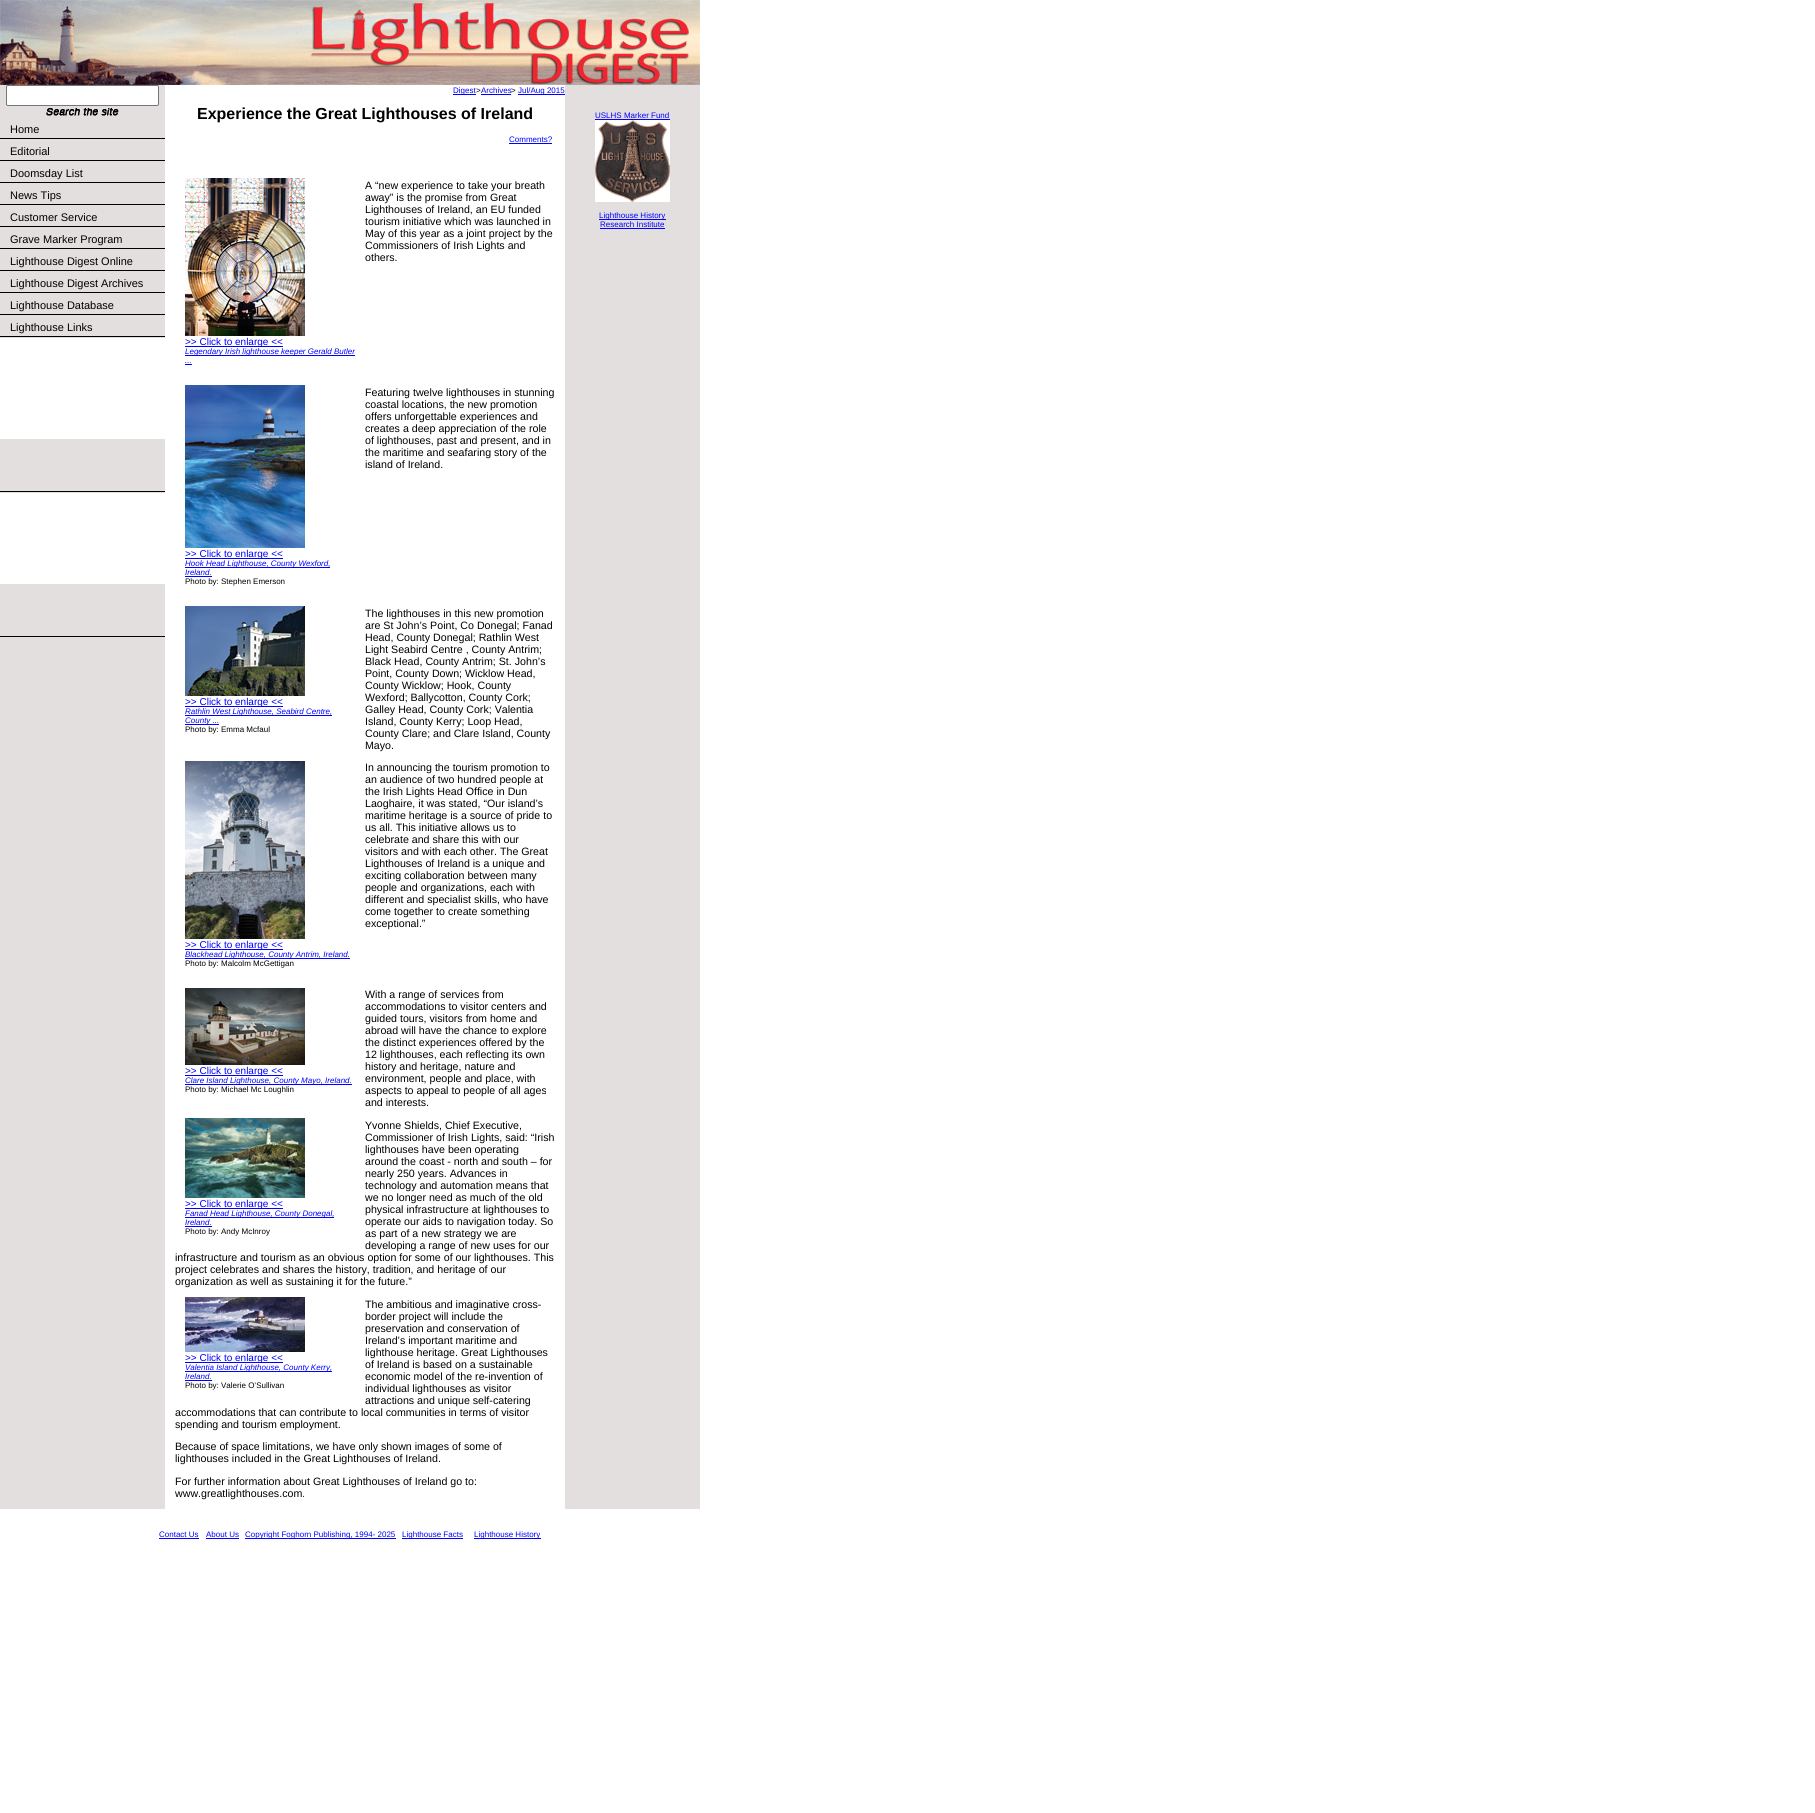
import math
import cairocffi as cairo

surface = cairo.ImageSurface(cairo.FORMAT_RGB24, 1815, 1813)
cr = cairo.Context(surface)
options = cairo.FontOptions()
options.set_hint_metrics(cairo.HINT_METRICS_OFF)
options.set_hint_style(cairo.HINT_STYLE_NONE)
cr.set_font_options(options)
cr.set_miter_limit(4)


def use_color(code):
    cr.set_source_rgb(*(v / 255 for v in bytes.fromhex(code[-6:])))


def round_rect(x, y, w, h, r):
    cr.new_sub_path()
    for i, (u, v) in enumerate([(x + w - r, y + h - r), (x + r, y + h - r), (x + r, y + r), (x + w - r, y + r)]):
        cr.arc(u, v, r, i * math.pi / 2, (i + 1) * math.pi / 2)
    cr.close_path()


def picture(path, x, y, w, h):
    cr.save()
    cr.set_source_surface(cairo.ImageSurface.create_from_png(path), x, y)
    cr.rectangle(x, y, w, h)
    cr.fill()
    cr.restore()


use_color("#ffffff")
cr.paint()
picture("img1.png", 0, 0, 700, 85)
use_color("#e4dfdf")
cr.rectangle(0, 85, 165, 1424)
cr.fill()
use_color("#ffffff")
round_rect(6.5, 85.5, 152, 20, 1.5)
cr.fill_preserve()
use_color("#767676")
cr.set_line_width(1)
cr.stroke()
picture("img2.png", 46, 108, 73, 8)
picture("img3.png", 0, 118, 165, 22)
cr.select_font_face("Liberation Sans")
cr.set_font_size(11)
use_color("#000000")
cr.move_to(10, 133)
cr.show_text("Home")
picture("img3.png", 0, 140, 165, 22)
cr.move_to(10, 155)
cr.show_text("Editorial")
picture("img3.png", 0, 162, 165, 22)
cr.move_to(10, 177)
cr.show_text("Doomsday List")
picture("img3.png", 0, 184, 165, 22)
cr.move_to(10, 199)
cr.show_text("News Tips")
picture("img3.png", 0, 206, 165, 22)
cr.move_to(10, 221)
cr.show_text("Customer Service")
picture("img3.png", 0, 228, 165, 22)
cr.move_to(10, 243)
cr.show_text("Grave Marker Program")
picture("img3.png", 0, 250, 165, 22)
cr.move_to(10, 265)
cr.show_text("Lighthouse Digest Online")
picture("img3.png", 0, 272, 165, 22)
cr.move_to(10, 287)
cr.show_text("Lighthouse Digest Archives")
picture("img3.png", 0, 294, 165, 22)
cr.move_to(10, 309)
cr.show_text("Lighthouse Database")
picture("img3.png", 0, 316, 165, 22)
cr.move_to(10, 331)
cr.show_text("Lighthouse Links")
use_color("#ffffff")
cr.rectangle(0, 338, 165, 101)
cr.fill()
picture("img4.png", 0, 439, 165, 54)
cr.rectangle(0, 493, 165, 91)
cr.fill()
picture("img4.png", 0, 584, 165, 54)
use_color("#0000ff")
cr.rectangle(453, 94, 23, 1)
cr.fill()
cr.set_font_size(8)
cr.move_to(453, 93)
cr.show_text("Digest")
use_color("#000000")
cr.move_to(476, 93)
cr.show_text(">")
use_color("#0000ff")
cr.move_to(481, 93)
cr.show_text("Archives")
cr.rectangle(481, 94, 30, 1)
cr.fill()
use_color("#000000")
cr.move_to(511, 93)
cr.show_text(">")
use_color("#0000ff")
cr.rectangle(518, 94, 47, 1)
cr.fill()
cr.move_to(518, 93)
cr.show_text("Jul/Aug 2015")
cr.select_font_face("Liberation Sans", cairo.FONT_SLANT_NORMAL, cairo.FONT_WEIGHT_BOLD)
cr.set_font_size(16)
use_color("#000000")
cr.move_to(197, 119)
cr.show_text("Experience the Great Lighthouses of Ireland")
cr.select_font_face("Liberation Sans")
cr.set_font_size(8)
use_color("#0000ff")
cr.move_to(509, 142)
cr.show_text("Comments?")
cr.rectangle(509, 143, 43, 1)
cr.fill()
cr.set_font_size(10.65)
use_color("#000000")
cr.move_to(365, 189)
cr.show_text("A “new experience to take your breath")
cr.move_to(365, 201)
cr.show_text("away” is the promise from Great")
cr.move_to(365, 213)
cr.show_text("Lighthouses of Ireland, an EU funded")
cr.move_to(365, 225)
cr.show_text("tourism initiative which was launched in")
cr.move_to(365, 237)
cr.show_text("May of this year as a joint project by the")
cr.move_to(365, 249)
cr.show_text("Commissioners of Irish Lights and")
cr.move_to(365, 261)
cr.show_text("others.")
picture("img5.png", 185, 385, 120, 163)
use_color("#0000ff")
cr.rectangle(185, 558, 98, 1)
cr.fill()
cr.set_font_size(10)
cr.move_to(185, 557)
cr.show_text(">> Click to enlarge <<")
cr.rectangle(185, 567, 145, 1)
cr.fill()
cr.select_font_face("Liberation Sans", cairo.FONT_SLANT_ITALIC)
cr.set_font_size(8)
cr.move_to(185, 566)
cr.show_text("Hook Head Lighthouse, County Wexford,")
cr.move_to(185, 575)
cr.show_text("Ireland.")
cr.rectangle(185, 576, 27, 1)
cr.fill()
cr.select_font_face("Liberation Sans")
use_color("#000000")
cr.move_to(185, 584)
cr.show_text("Photo by: Stephen Emerson")
picture("img6.png", 185, 178, 120, 158)
use_color("#0000ff")
cr.rectangle(185, 346, 98, 1)
cr.fill()
cr.set_font_size(10)
cr.move_to(185, 345)
cr.show_text(">> Click to enlarge <<")
cr.rectangle(185, 355, 170, 1)
cr.fill()
cr.select_font_face("Liberation Sans", cairo.FONT_SLANT_ITALIC)
cr.set_font_size(8)
cr.move_to(185, 354)
cr.show_text("Legendary Irish lighthouse keeper Gerald Butler")
cr.move_to(185, 363)
cr.show_text("...")
cr.rectangle(185, 364, 7, 1)
cr.fill()
cr.select_font_face("Liberation Sans")
cr.set_font_size(10.65)
use_color("#000000")
cr.move_to(365, 396)
cr.show_text("Featuring twelve lighthouses in stunning")
cr.move_to(365, 408)
cr.show_text("coastal locations, the new promotion")
cr.move_to(365, 420)
cr.show_text("offers unforgettable experiences and")
cr.move_to(365, 432)
cr.show_text("creates a deep appreciation of the role")
cr.move_to(365, 444)
cr.show_text("of lighthouses, past and present, and in")
cr.move_to(365, 456)
cr.show_text("the maritime and seafaring story of the")
cr.move_to(365, 468)
cr.show_text("island of Ireland.")
picture("img7.png", 185, 606, 120, 90)
use_color("#0000ff")
cr.rectangle(185, 706, 98, 1)
cr.fill()
cr.set_font_size(10)
cr.move_to(185, 705)
cr.show_text(">> Click to enlarge <<")
cr.rectangle(185, 715, 147, 1)
cr.fill()
cr.select_font_face("Liberation Sans", cairo.FONT_SLANT_ITALIC)
cr.set_font_size(8)
cr.move_to(185, 714)
cr.show_text("Rathlin West Lighthouse, Seabird Centre,")
cr.rectangle(185, 724, 34, 1)
cr.fill()
cr.move_to(185, 723)
cr.show_text("County ...")
cr.select_font_face("Liberation Sans")
use_color("#000000")
cr.move_to(185, 732)
cr.show_text("Photo by: Emma Mcfaul")
cr.set_font_size(10.65)
cr.move_to(365, 617)
cr.show_text("The lighthouses in this new promotion")
cr.move_to(365, 629)
cr.show_text("are St John’s Point, Co Donegal; Fanad")
cr.move_to(365, 641)
cr.show_text("Head, County Donegal; Rathlin West")
cr.move_to(365, 653)
cr.show_text("Light Seabird Centre , County Antrim;")
cr.move_to(365, 665)
cr.show_text("Black Head, County Antrim; St. John’s")
cr.move_to(365, 677)
cr.show_text("Point, County Down; Wicklow Head,")
cr.move_to(365, 689)
cr.show_text("County Wicklow; Hook, County")
cr.move_to(365, 701)
cr.show_text("Wexford; Ballycotton, County Cork;")
cr.move_to(365, 713)
cr.show_text("Galley Head, County Cork; Valentia")
cr.move_to(365, 725)
cr.show_text("Island, County Kerry; Loop Head,")
cr.move_to(365, 737)
cr.show_text("County Clare; and Clare Island, County")
cr.move_to(365, 749)
cr.show_text("Mayo.")
picture("img8.png", 185, 761, 120, 178)
use_color("#0000ff")
cr.rectangle(185, 949, 98, 1)
cr.fill()
cr.set_font_size(10)
cr.move_to(185, 948)
cr.show_text(">> Click to enlarge <<")
cr.rectangle(185, 958, 165, 1)
cr.fill()
cr.select_font_face("Liberation Sans", cairo.FONT_SLANT_ITALIC)
cr.set_font_size(8)
cr.move_to(185, 957)
cr.show_text("Blackhead Lighthouse, County Antrim, Ireland.")
cr.select_font_face("Liberation Sans")
use_color("#000000")
cr.move_to(185, 966)
cr.show_text("Photo by: Malcolm McGettigan")
cr.set_font_size(10.65)
cr.move_to(365, 771)
cr.show_text("In announcing the tourism promotion to")
cr.move_to(365, 783)
cr.show_text("an audience of two hundred people at")
cr.move_to(365, 795)
cr.show_text("the Irish Lights Head Office in Dun")
cr.move_to(365, 807)
cr.show_text("Laoghaire, it was stated, “Our island’s")
cr.move_to(365, 819)
cr.show_text("maritime heritage is a source of pride to")
cr.move_to(365, 831)
cr.show_text("us all. This initiative allows us to")
cr.move_to(365, 843)
cr.show_text("celebrate and share this with our")
cr.move_to(365, 855)
cr.show_text("visitors and with each other. The Great")
cr.move_to(365, 867)
cr.show_text("Lighthouses of Ireland is a unique and")
cr.move_to(365, 879)
cr.show_text("exciting collaboration between many")
cr.move_to(365, 891)
cr.show_text("people and organizations, each with")
cr.move_to(365, 903)
cr.show_text("different and specialist skills, who have")
cr.move_to(365, 915)
cr.show_text("come together to create something")
cr.move_to(365, 927)
cr.show_text("exceptional.”")
picture("img9.png", 185, 988, 120, 77)
use_color("#0000ff")
cr.rectangle(185, 1075, 98, 1)
cr.fill()
cr.set_font_size(10)
cr.move_to(185, 1074)
cr.show_text(">> Click to enlarge <<")
cr.rectangle(185, 1084, 167, 1)
cr.fill()
cr.select_font_face("Liberation Sans", cairo.FONT_SLANT_ITALIC)
cr.set_font_size(8)
cr.move_to(185, 1083)
cr.show_text("Clare Island Lighthouse, County Mayo, Ireland.")
cr.select_font_face("Liberation Sans")
use_color("#000000")
cr.move_to(185, 1092)
cr.show_text("Photo by: Michael Mc Loughlin")
cr.set_font_size(10.65)
cr.move_to(365, 998)
cr.show_text("With a range of services from")
cr.move_to(365, 1010)
cr.show_text("accommodations to visitor centers and")
cr.move_to(365, 1022)
cr.show_text("guided tours, visitors from home and")
cr.move_to(365, 1034)
cr.show_text("abroad will have the chance to explore")
cr.move_to(365, 1046)
cr.show_text("the distinct experiences offered by the")
cr.move_to(365, 1058)
cr.show_text("12 lighthouses, each reflecting its own")
cr.move_to(365, 1070)
cr.show_text("history and heritage, nature and")
cr.move_to(365, 1082)
cr.show_text("environment, people and place, with")
cr.move_to(365, 1094)
cr.show_text("aspects to appeal to people of all ages")
cr.move_to(365, 1106)
cr.show_text("and interests.")
picture("img10.png", 185, 1118, 120, 80)
use_color("#0000ff")
cr.rectangle(185, 1208, 98, 1)
cr.fill()
cr.set_font_size(10)
cr.move_to(185, 1207)
cr.show_text(">> Click to enlarge <<")
cr.rectangle(185, 1217, 149, 1)
cr.fill()
cr.select_font_face("Liberation Sans", cairo.FONT_SLANT_ITALIC)
cr.set_font_size(8)
cr.move_to(185, 1216)
cr.show_text("Fanad Head Lighthouse, County Donegal,")
cr.move_to(185, 1225)
cr.show_text("Ireland.")
cr.rectangle(185, 1226, 27, 1)
cr.fill()
cr.select_font_face("Liberation Sans")
use_color("#000000")
cr.move_to(185, 1234)
cr.show_text("Photo by: Andy McInroy")
cr.set_font_size(10.65)
cr.move_to(365, 1129)
cr.show_text("Yvonne Shields, Chief Executive,")
cr.move_to(365, 1141)
cr.show_text("Commissioner of Irish Lights, said: “Irish")
cr.move_to(365, 1153)
cr.show_text("lighthouses have been operating")
cr.move_to(365, 1165)
cr.show_text("around the coast - north and south – for")
cr.move_to(365, 1177)
cr.show_text("nearly 250 years. Advances in")
cr.move_to(365, 1189)
cr.show_text("technology and automation means that")
cr.move_to(365, 1201)
cr.show_text("we no longer need as much of the old")
cr.move_to(365, 1213)
cr.show_text("physical infrastructure at lighthouses to")
cr.move_to(365, 1225)
cr.show_text("operate our aids to navigation today. So")
cr.move_to(365, 1237)
cr.show_text("as part of a new strategy we are")
cr.move_to(365, 1249)
cr.show_text("developing a range of new uses for our")
cr.move_to(175, 1261)
cr.show_text("infrastructure and tourism as an obvious option for some of our lighthouses. This")
cr.move_to(175, 1273)
cr.show_text("project celebrates and shares the history, tradition, and heritage of our")
cr.move_to(175, 1285)
cr.show_text("organization as well as sustaining it for the future.”")
picture("img11.png", 185, 1297, 120, 55)
use_color("#0000ff")
cr.rectangle(185, 1362, 98, 1)
cr.fill()
cr.set_font_size(10)
cr.move_to(185, 1361)
cr.show_text(">> Click to enlarge <<")
cr.rectangle(185, 1371, 147, 1)
cr.fill()
cr.select_font_face("Liberation Sans", cairo.FONT_SLANT_ITALIC)
cr.set_font_size(8)
cr.move_to(185, 1370)
cr.show_text("Valentia Island Lighthouse, County Kerry,")
cr.move_to(185, 1379)
cr.show_text("Ireland.")
cr.rectangle(185, 1380, 27, 1)
cr.fill()
cr.select_font_face("Liberation Sans")
use_color("#000000")
cr.move_to(185, 1388)
cr.show_text("Photo by: Valerie O’Sullivan")
cr.set_font_size(10.65)
cr.move_to(365, 1308)
cr.show_text("The ambitious and imaginative cross-")
cr.move_to(365, 1320)
cr.show_text("border project will include the")
cr.move_to(365, 1332)
cr.show_text("preservation and conservation of")
cr.move_to(365, 1344)
cr.show_text("Ireland’s important maritime and")
cr.move_to(365, 1356)
cr.show_text("lighthouse heritage. Great Lighthouses")
cr.move_to(365, 1368)
cr.show_text("of Ireland is based on a sustainable")
cr.move_to(365, 1380)
cr.show_text("economic model of the re-invention of")
cr.move_to(365, 1392)
cr.show_text("individual lighthouses as visitor")
cr.move_to(365, 1404)
cr.show_text("attractions and unique self-catering")
cr.move_to(175, 1416)
cr.show_text("accommodations that can contribute to local communities in terms of visitor")
cr.move_to(175, 1428)
cr.show_text("spending and tourism employment.")
cr.move_to(175, 1450)
cr.show_text("Because of space limitations, we have only shown images of some of")
cr.move_to(175, 1462)
cr.show_text("lighthouses included in the Great Lighthouses of Ireland.")
cr.move_to(175, 1485)
cr.show_text("For further information about Great Lighthouses of Ireland go to:")
cr.move_to(175, 1497)
cr.show_text("www.greatlighthouses.com.")
use_color("#e4dfdf")
cr.rectangle(565, 85, 135, 1424)
cr.fill()
cr.set_font_size(8)
use_color("#0000ff")
cr.move_to(595, 118)
cr.show_text("USLHS Marker Fund")
cr.rectangle(595, 119, 75, 1)
cr.fill()
picture("img12.png", 595, 120, 75, 82)
cr.rectangle(599, 219, 67, 1)
cr.fill()
cr.move_to(599, 218)
cr.show_text("Lighthouse History")
cr.move_to(600, 227)
cr.show_text("Research Institute")
cr.rectangle(600, 228, 65, 1)
cr.fill()
cr.move_to(159, 1537)
cr.show_text("Contact Us")
cr.rectangle(159, 1538, 40, 1)
cr.fill()
cr.move_to(206, 1537)
cr.show_text("About Us")
cr.rectangle(206, 1538, 33, 1)
cr.fill()
cr.rectangle(245, 1538, 151, 1)
cr.fill()
cr.move_to(245, 1537)
cr.show_text("Copyright Foghorn Publishing, 1994- 2025")
cr.rectangle(402, 1538, 61, 1)
cr.fill()
cr.move_to(402, 1537)
cr.show_text("Lighthouse Facts")
cr.rectangle(474, 1538, 67, 1)
cr.fill()
cr.move_to(474, 1537)
cr.show_text("Lighthouse History")
surface.write_to_png("result.png")
